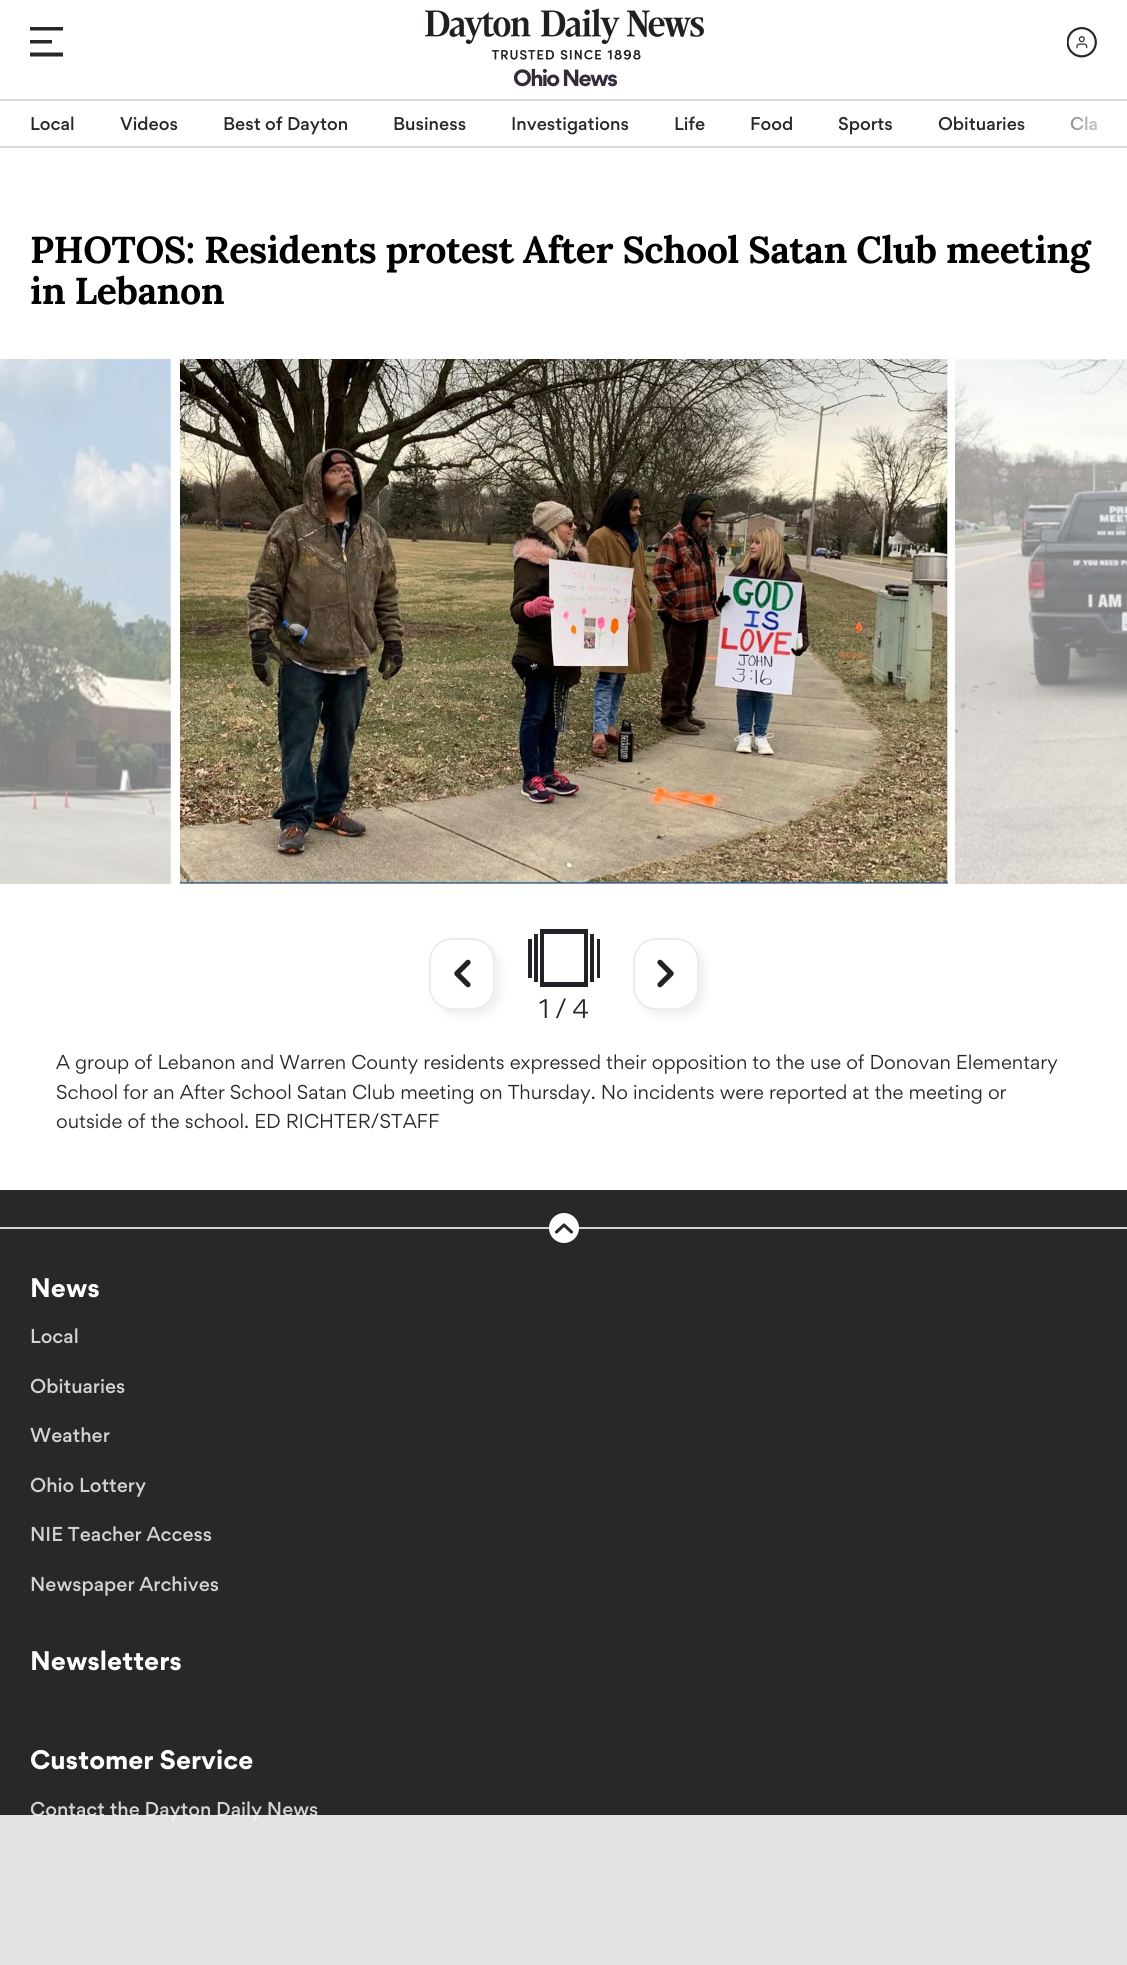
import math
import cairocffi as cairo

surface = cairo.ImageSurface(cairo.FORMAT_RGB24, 1127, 1965)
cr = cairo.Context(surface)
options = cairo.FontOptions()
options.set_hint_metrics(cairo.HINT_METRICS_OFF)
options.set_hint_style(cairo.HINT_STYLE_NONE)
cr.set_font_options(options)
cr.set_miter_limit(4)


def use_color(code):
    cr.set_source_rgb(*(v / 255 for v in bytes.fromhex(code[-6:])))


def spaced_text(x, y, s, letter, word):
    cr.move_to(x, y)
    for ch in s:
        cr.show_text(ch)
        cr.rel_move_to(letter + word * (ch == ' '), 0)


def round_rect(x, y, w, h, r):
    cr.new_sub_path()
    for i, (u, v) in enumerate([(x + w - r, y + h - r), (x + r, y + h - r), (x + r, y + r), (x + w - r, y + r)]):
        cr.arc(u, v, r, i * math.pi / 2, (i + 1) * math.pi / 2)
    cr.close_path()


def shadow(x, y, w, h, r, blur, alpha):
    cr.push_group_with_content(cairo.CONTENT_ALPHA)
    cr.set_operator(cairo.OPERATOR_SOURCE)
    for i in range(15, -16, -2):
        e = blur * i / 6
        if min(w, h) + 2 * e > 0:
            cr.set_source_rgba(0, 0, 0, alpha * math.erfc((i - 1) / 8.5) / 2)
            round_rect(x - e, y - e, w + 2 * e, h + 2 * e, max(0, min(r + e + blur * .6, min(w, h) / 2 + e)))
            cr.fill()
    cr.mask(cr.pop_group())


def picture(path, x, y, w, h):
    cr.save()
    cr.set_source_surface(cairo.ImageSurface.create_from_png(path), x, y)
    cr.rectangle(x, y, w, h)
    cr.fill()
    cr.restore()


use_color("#ffffff")
cr.paint()
use_color("#282828")
cr.new_path()
cr.move_to(30, 27)
cr.line_to(63, 27)
cr.line_to(63, 30.5)
cr.line_to(30, 30.5)
cr.close_path()
cr.move_to(30, 40)
cr.line_to(52, 40)
cr.line_to(52, 43.5)
cr.line_to(30, 43.5)
cr.close_path()
cr.move_to(30, 52.5)
cr.line_to(63, 52.5)
cr.line_to(63, 56.5)
cr.line_to(30, 56.5)
cr.close_path()
cr.fill()
picture("img1.png", 425, 8, 279, 52)
picture("img2.png", 1067, 27, 30, 31)
cr.select_font_face("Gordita", cairo.FONT_SLANT_NORMAL, cairo.FONT_WEIGHT_BOLD)
cr.set_font_size(21)
use_color("#342c38")
spaced_text(513, 86, "Ohio News", -1.75, 0)
use_color("#dadada")
cr.rectangle(0, 99, 1127, 2)
cr.fill()
cr.rectangle(0, 146, 1127, 2)
cr.fill()
cr.select_font_face("Gordita Medium")
cr.set_font_size(16.5)
use_color("#282828")
cr.move_to(30, 130)
cr.show_text("Local")
cr.move_to(120, 130)
cr.show_text("Videos")
cr.move_to(223, 130)
cr.show_text("Best of Dayton")
cr.move_to(393, 130)
cr.show_text("Business")
cr.move_to(511, 130)
cr.show_text("Investigations")
cr.move_to(674, 130)
cr.show_text("Life")
cr.move_to(750, 130)
cr.show_text("Food")
cr.move_to(838, 130)
cr.show_text("Sports")
cr.move_to(938, 130)
cr.show_text("Obituaries")
cr.move_to(1070, 130)
cr.show_text("Cla")
gradient = cairo.LinearGradient(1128, 123, 1016, 123)
gradient.add_color_stop_rgba(0, 1, 1, 1, 1)
gradient.add_color_stop_rgba(1, 1, 1, 1, 0)
cr.set_source(gradient)
cr.rectangle(1018, 116, 80, 15)
cr.fill()
cr.select_font_face("Lora", cairo.FONT_SLANT_NORMAL, cairo.FONT_WEIGHT_BOLD)
cr.set_font_size(37.45)
use_color("#000000")
spaced_text(30, 263, "PHOTOS: Residents protest After School Satan Club meeting", -0.45, 0)
spaced_text(30, 304, "in Lebanon", -0.45, 0)
picture("img3.png", 0, 359, 171, 525)
picture("img4.png", 180, 359, 768, 525)
picture("img5.png", 955, 359, 172, 525)
use_color("#e6e6e6")
shadow(435, 944, 66, 72, 23, 4.5, 0.6)
use_color("#ffffff")
round_rect(430, 939, 64, 70, 22)
cr.fill_preserve()
use_color("#ececec")
cr.stroke()
picture("img6.png", 454, 959, 17, 29)
use_color("#212126")
cr.rectangle(528, 939, 4, 39)
cr.fill()
cr.rectangle(534, 934, 4, 48)
cr.fill()
cr.set_fill_rule(cairo.FILL_RULE_EVEN_ODD)
cr.new_path()
cr.move_to(540, 987)
cr.line_to(588, 987)
cr.line_to(588, 929)
cr.line_to(540, 929)
cr.close_path()
cr.move_to(544, 982)
cr.line_to(584, 982)
cr.line_to(584, 934)
cr.line_to(544, 934)
cr.close_path()
cr.fill()
cr.rectangle(590, 934, 4, 48)
cr.fill()
cr.rectangle(597, 939, 3, 39)
cr.fill()
use_color("#e6e6e6")
shadow(639, 944, 66, 72, 23, 4.5, 0.6)
use_color("#ffffff")
round_rect(634, 939, 64, 70, 22)
cr.fill_preserve()
use_color("#ececec")
cr.stroke()
picture("img7.png", 657, 959, 17, 29)
cr.select_font_face("Gordita")
cr.set_font_size(24)
use_color("#282828")
spaced_text(539, 1018, "1 / 4", -0.5, 0)
cr.set_font_size(18)
cr.move_to(56, 1069)
cr.show_text("A group of Lebanon and Warren County residents expressed their opposition to the use of Donovan Elementary")
cr.move_to(56, 1099)
cr.show_text("School for an After School Satan Club meeting on Thursday. No incidents were reported at the meeting or")
cr.move_to(56, 1128)
cr.show_text("outside of the school. ED RICHTER/STAFF")
cr.rectangle(0, 1190, 1127, 775)
cr.fill()
use_color("#d3d3d3")
cr.rectangle(0, 1227, 1127, 2)
cr.fill()
use_color("#ffffff")
cr.arc(564, 1228, 15, 0, 2 * math.pi)
cr.fill()
cr.new_path()
cr.move_to(571.5, 1232)
cr.line_to(564, 1225)
cr.line_to(556.5, 1232)
use_color("#282828")
cr.set_line_width(3.1)
cr.set_line_cap(cairo.LINE_CAP_ROUND)
cr.set_line_join(cairo.LINE_JOIN_ROUND)
cr.stroke()
cr.select_font_face("Gordita", cairo.FONT_SLANT_NORMAL, cairo.FONT_WEIGHT_BOLD)
cr.set_font_size(24)
use_color("#ffffff")
cr.move_to(30, 1297)
cr.show_text("News")
cr.select_font_face("Gordita Medium")
cr.set_font_size(18)
use_color("#d3d3d3")
cr.move_to(30, 1343)
cr.show_text("Local")
cr.move_to(30, 1393)
cr.show_text("Obituaries")
cr.move_to(30, 1442)
cr.show_text("Weather")
cr.move_to(30, 1492)
cr.show_text("Ohio Lottery")
cr.move_to(30, 1541)
cr.show_text("NIE Teacher Access")
cr.move_to(30, 1591)
cr.show_text("Newspaper Archives")
cr.select_font_face("Gordita", cairo.FONT_SLANT_NORMAL, cairo.FONT_WEIGHT_BOLD)
cr.set_font_size(24)
use_color("#ffffff")
cr.move_to(30, 1670)
cr.show_text("Newsletters")
cr.move_to(30, 1769)
cr.show_text("Customer Service")
cr.select_font_face("Gordita Medium")
cr.set_font_size(18)
use_color("#d3d3d3")
cr.move_to(30, 1816)
cr.show_text("Contact the Dayton Daily News")
cr.set_source_rgba(0.969, 0.969, 0.969, 0.9)
cr.rectangle(0, 1815, 1127, 150)
cr.fill()
surface.write_to_png("result.png")
